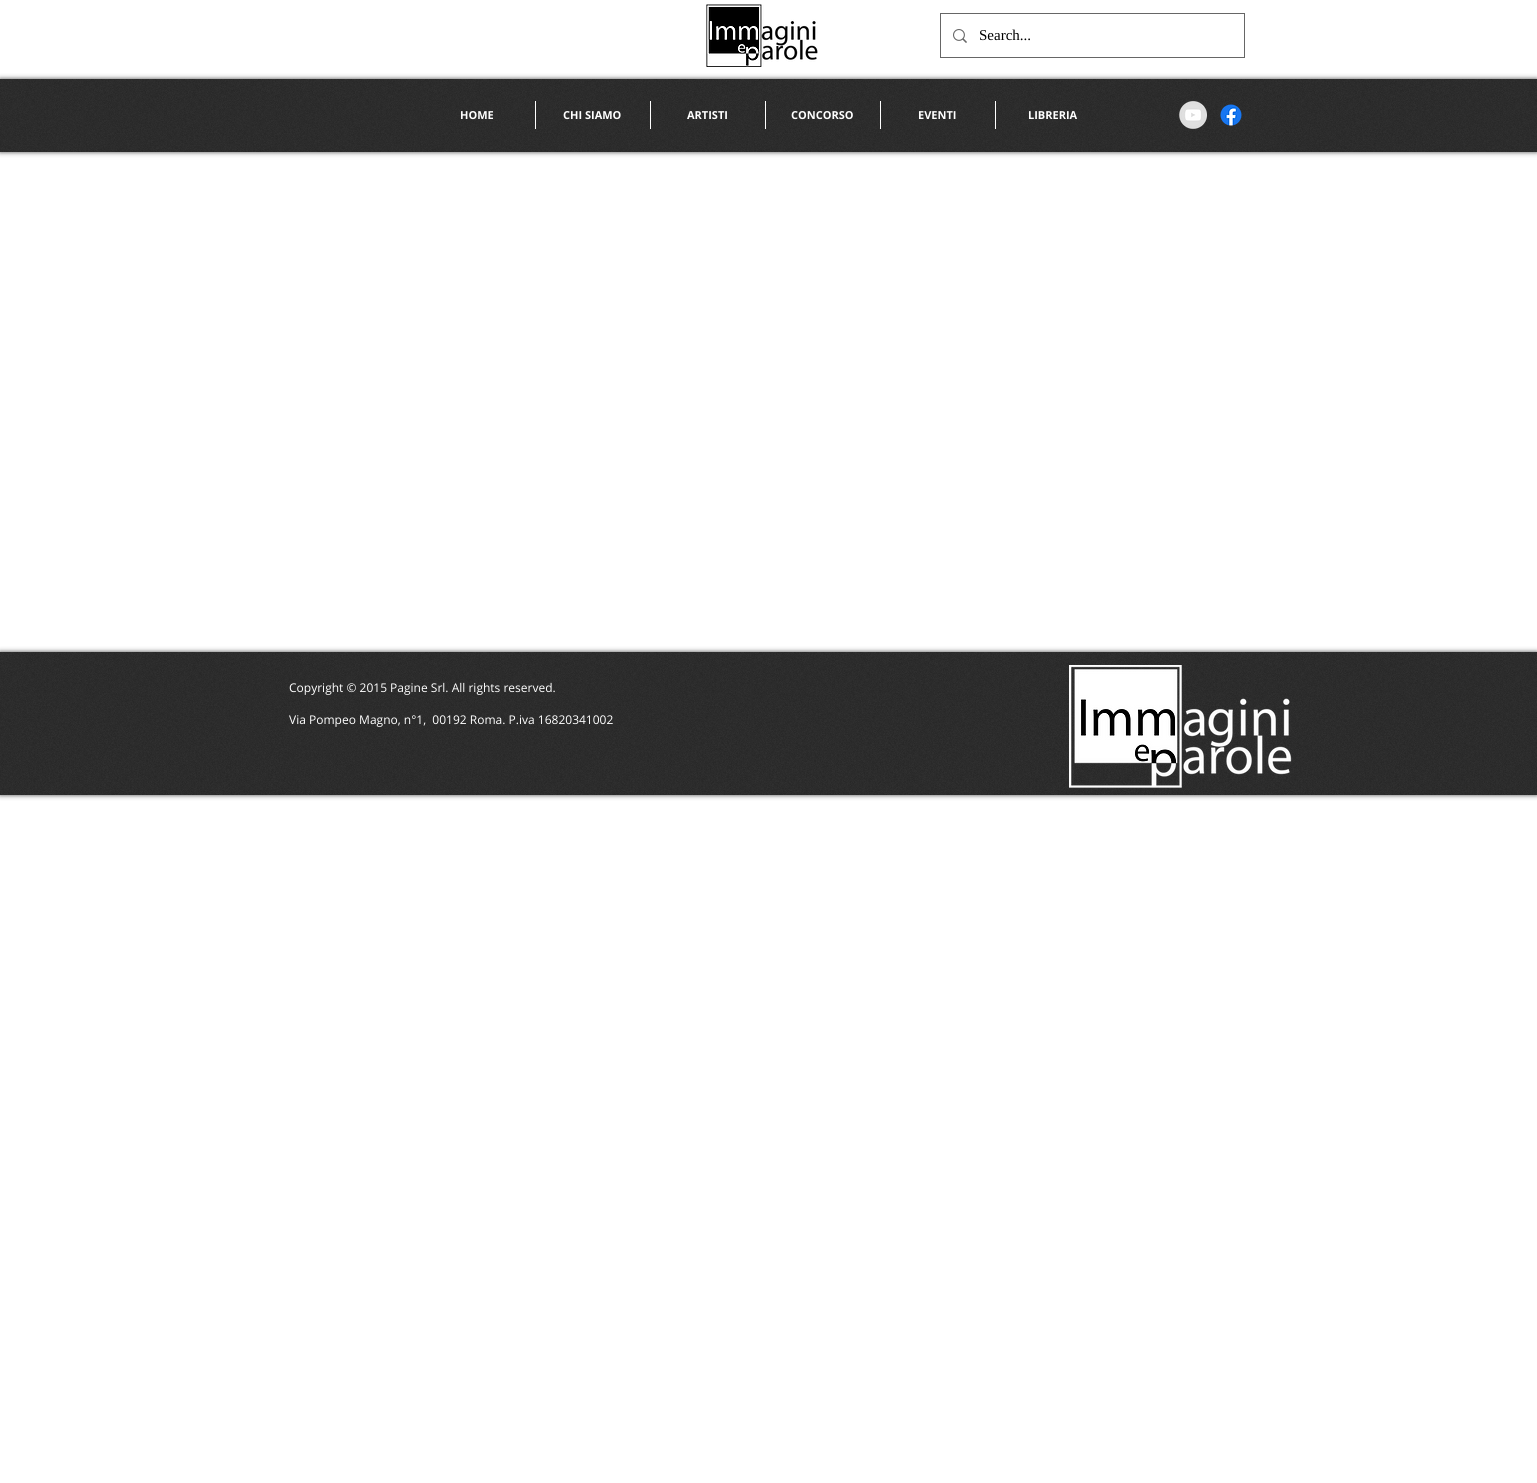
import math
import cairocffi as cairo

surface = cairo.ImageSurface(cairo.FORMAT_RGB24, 1537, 1483)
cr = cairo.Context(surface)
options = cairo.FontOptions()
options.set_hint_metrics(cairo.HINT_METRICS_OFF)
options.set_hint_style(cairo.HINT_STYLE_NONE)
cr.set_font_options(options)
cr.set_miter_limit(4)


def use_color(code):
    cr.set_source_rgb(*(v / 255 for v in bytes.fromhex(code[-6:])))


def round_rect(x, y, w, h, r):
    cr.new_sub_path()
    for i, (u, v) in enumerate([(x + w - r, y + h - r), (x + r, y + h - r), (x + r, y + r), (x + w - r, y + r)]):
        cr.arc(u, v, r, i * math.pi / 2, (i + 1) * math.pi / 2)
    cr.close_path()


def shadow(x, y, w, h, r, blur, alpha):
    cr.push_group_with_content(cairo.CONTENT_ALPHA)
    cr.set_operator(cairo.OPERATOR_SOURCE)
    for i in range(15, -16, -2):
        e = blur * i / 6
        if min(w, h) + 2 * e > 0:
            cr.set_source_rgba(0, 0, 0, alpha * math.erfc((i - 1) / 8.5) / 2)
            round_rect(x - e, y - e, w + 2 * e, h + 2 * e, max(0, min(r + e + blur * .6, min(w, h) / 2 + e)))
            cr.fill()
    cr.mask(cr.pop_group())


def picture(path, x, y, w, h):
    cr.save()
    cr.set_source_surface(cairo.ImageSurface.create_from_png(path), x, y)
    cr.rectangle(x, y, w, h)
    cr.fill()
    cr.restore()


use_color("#ffffff")
cr.paint()
picture("img1.png", 706, 4, 112, 63)
cr.rectangle(940.5, 13.5, 304, 44)
use_color("#666666")
cr.set_line_width(1)
cr.stroke()
picture("img2.png", 953, 29, 14, 14)
cr.select_font_face("Liberation Serif")
cr.set_font_size(15)
use_color("#000000")
cr.move_to(979, 40)
cr.show_text("Search...")
use_color("#000000")
shadow(0, 79, 1537, 73, 0, 2.5, 0.7)
use_color("#2b2b2b")
cr.rectangle(0, 79, 1537, 73)
cr.fill()
picture("img3.png", 0, 79, 1537, 73)
cr.select_font_face("Open Sans", cairo.FONT_SLANT_NORMAL, cairo.FONT_WEIGHT_BOLD)
cr.set_font_size(11)
use_color("#ffffff")
cr.move_to(460, 119)
cr.show_text("HOME")
cr.rectangle(535, 101, 1, 28)
cr.fill()
cr.move_to(563, 119)
cr.show_text("CHI SIAMO")
cr.rectangle(650, 101, 1, 28)
cr.fill()
cr.move_to(687, 119)
cr.show_text("ARTISTI")
cr.rectangle(765, 101, 1, 28)
cr.fill()
cr.move_to(791, 119)
cr.show_text("CONCORSO")
cr.rectangle(880, 101, 1, 28)
cr.fill()
cr.move_to(918, 119)
cr.show_text("EVENTI")
cr.rectangle(995, 101, 1, 28)
cr.fill()
cr.move_to(1028, 119)
cr.show_text("LIBRERIA")
picture("img4.png", 1179, 101, 28, 28)
picture("img5.png", 1220, 104, 22, 22)
use_color("#000000")
shadow(0, 652, 1537, 143, 0, 2.5, 0.7)
use_color("#2b2b2b")
cr.rectangle(0, 652, 1537, 143)
cr.fill()
picture("img6.png", 0, 652, 1537, 143)
cr.select_font_face("Open Sans")
cr.set_font_size(12)
use_color("#ffffff")
cr.move_to(289, 692)
cr.show_text("Copyright © 2015 Pagine Srl. All rights reserved.")
cr.move_to(289, 724)
cr.show_text("Via Pompeo Magno, n°1,  00192 Roma. P.iva 16820341002")
picture("img7.png", 1069, 665, 223, 123)
surface.write_to_png("result.png")
